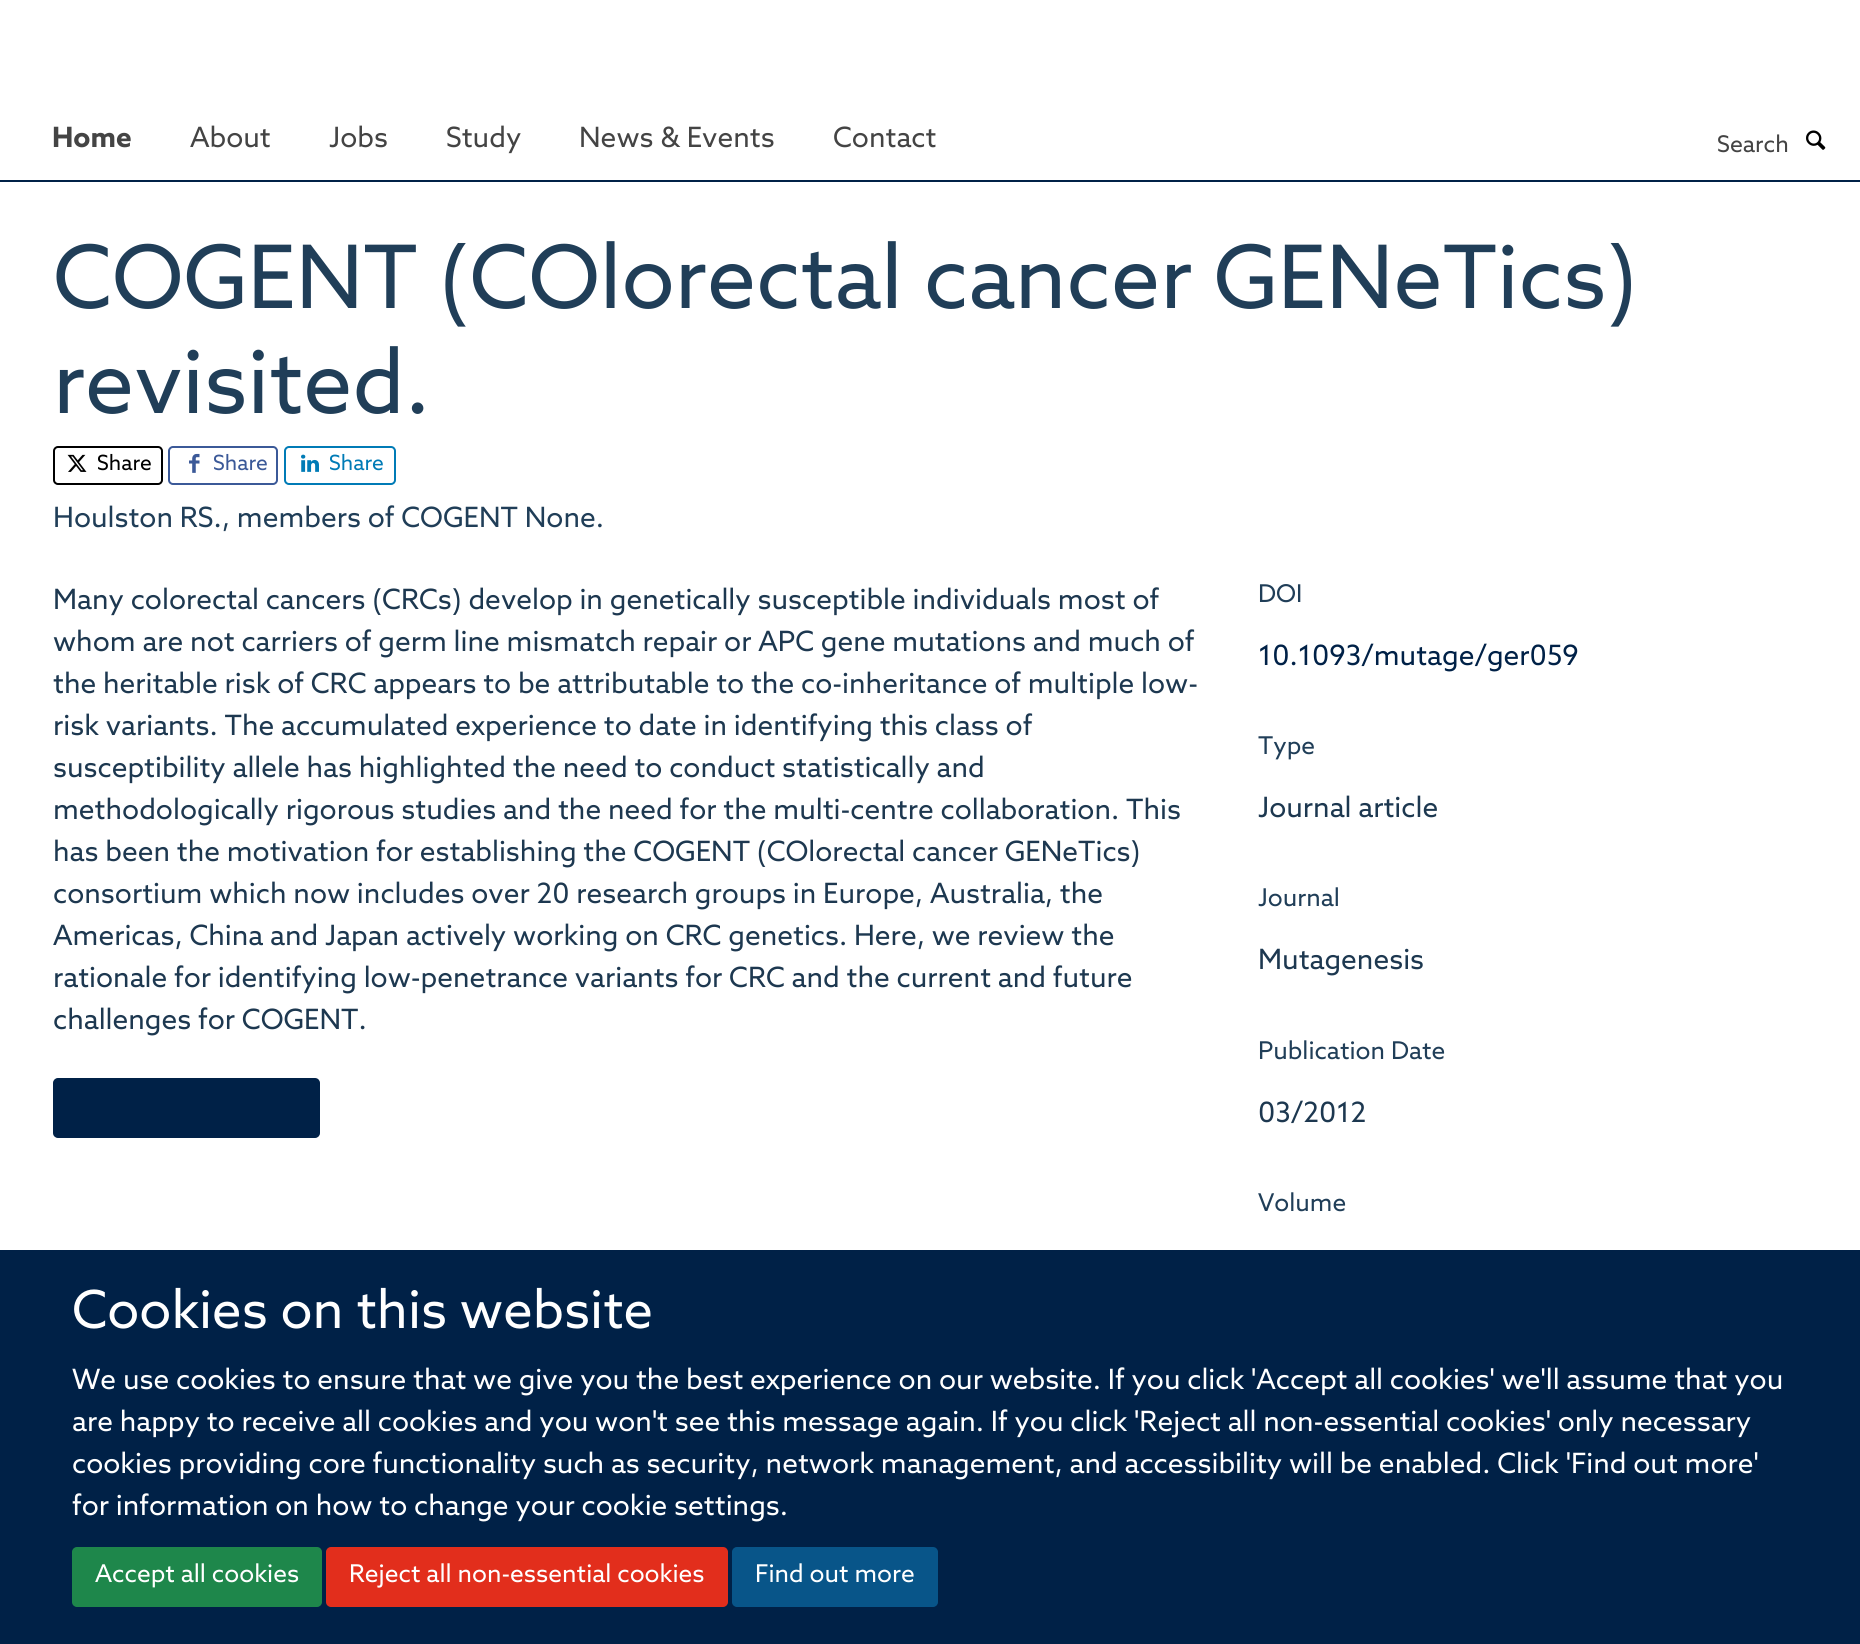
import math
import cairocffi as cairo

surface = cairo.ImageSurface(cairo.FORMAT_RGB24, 1860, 1644)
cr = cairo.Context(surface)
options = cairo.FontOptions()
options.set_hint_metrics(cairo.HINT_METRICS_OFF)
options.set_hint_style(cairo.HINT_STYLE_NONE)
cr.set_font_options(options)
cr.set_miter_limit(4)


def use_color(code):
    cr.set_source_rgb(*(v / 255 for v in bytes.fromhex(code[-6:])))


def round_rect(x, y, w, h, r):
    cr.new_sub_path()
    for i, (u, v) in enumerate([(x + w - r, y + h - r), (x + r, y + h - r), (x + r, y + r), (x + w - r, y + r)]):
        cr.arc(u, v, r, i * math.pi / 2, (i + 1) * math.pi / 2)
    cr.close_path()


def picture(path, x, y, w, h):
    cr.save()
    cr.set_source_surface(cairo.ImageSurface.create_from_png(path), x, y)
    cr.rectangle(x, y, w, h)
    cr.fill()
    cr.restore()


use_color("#ffffff")
cr.paint()
use_color("#002147")
cr.rectangle(0, 180, 1860, 2)
cr.fill()
cr.select_font_face("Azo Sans", cairo.FONT_SLANT_NORMAL, cairo.FONT_WEIGHT_BOLD)
cr.set_font_size(28)
use_color("#444444")
cr.move_to(52, 147)
cr.show_text("Home")
cr.select_font_face("Azo Sans")
cr.move_to(190, 147)
cr.show_text("About")
cr.move_to(329, 147)
cr.show_text("Jobs")
cr.move_to(446, 147)
cr.show_text("Study")
cr.move_to(579, 147)
cr.show_text("News & Events")
cr.move_to(833, 147)
cr.show_text("Contact")
cr.set_font_size(23)
cr.move_to(1717, 152)
cr.show_text("Search")
picture("img1.png", 1806, 130, 20, 20)
cr.set_font_size(87.5)
use_color("#203e58")
cr.move_to(53, 308)
cr.show_text("COGENT (COlorectal cancer GENeTics)")
cr.move_to(53, 413)
cr.show_text("revisited.")
round_rect(54, 447, 108, 37, 4)
use_color("#000000")
cr.stroke()
picture("img2.png", 67, 454, 20, 18)
cr.set_font_size(21)
cr.move_to(97, 470)
cr.show_text("Share")
round_rect(169, 447, 108, 37, 4)
use_color("#3b5998")
cr.stroke()
picture("img3.png", 189, 453, 11, 20)
cr.move_to(213, 470)
cr.show_text("Share")
round_rect(285, 447, 110, 37, 4)
use_color("#007bb6")
cr.stroke()
picture("img4.png", 301, 454, 18, 18)
cr.move_to(329, 470)
cr.show_text("Share")
cr.set_font_size(28)
use_color("#203e58")
cr.move_to(53, 527)
cr.show_text("Houlston RS., members of COGENT None.")
use_color("#1d3850")
cr.move_to(53, 609)
cr.show_text("Many colorectal cancers (CRCs) develop in genetically susceptible individuals most of")
cr.move_to(53, 651)
cr.show_text("whom are not carriers of germ line mismatch repair or APC gene mutations and much of")
cr.move_to(53, 693)
cr.show_text("the heritable risk of CRC appears to be attributable to the co-inheritance of multiple low-")
cr.move_to(53, 735)
cr.show_text("risk variants. The accumulated experience to date in identifying this class of")
cr.move_to(53, 777)
cr.show_text("susceptibility allele has highlighted the need to conduct statistically and")
cr.move_to(53, 819)
cr.show_text("methodologically rigorous studies and the need for the multi-centre collaboration. This")
cr.move_to(53, 861)
cr.show_text("has been the motivation for establishing the COGENT (COlorectal cancer GENeTics)")
cr.move_to(53, 903)
cr.show_text("consortium which now includes over 20 research groups in Europe, Australia, the")
cr.move_to(53, 945)
cr.show_text("Americas, China and Japan actively working on CRC genetics. Here, we review the")
cr.move_to(53, 987)
cr.show_text("rationale for identifying low-penetrance variants for CRC and the current and future")
cr.move_to(53, 1029)
cr.show_text("challenges for COGENT.")
use_color("#002147")
round_rect(54, 1079, 265, 58, 4)
cr.fill_preserve()
cr.stroke()
cr.set_font_size(24.5)
use_color("#203e58")
cr.move_to(1258, 602)
cr.show_text("DOI")
cr.set_font_size(28)
use_color("#002147")
cr.move_to(1258, 665)
cr.show_text("10.1093/mutage/ger059")
cr.set_font_size(24.5)
use_color("#203e58")
cr.move_to(1258, 754)
cr.show_text("Type")
cr.set_font_size(28)
use_color("#1d3850")
cr.move_to(1258, 817)
cr.show_text("Journal article")
cr.set_font_size(24.5)
use_color("#203e58")
cr.move_to(1258, 906)
cr.show_text("Journal")
cr.set_font_size(28)
use_color("#1d3850")
cr.move_to(1258, 969)
cr.show_text("Mutagenesis")
cr.set_font_size(24.5)
use_color("#203e58")
cr.move_to(1258, 1059)
cr.show_text("Publication Date")
cr.set_font_size(28)
use_color("#1d3850")
cr.move_to(1258, 1122)
cr.show_text("03/2012")
cr.set_font_size(24.5)
use_color("#203e58")
cr.move_to(1258, 1211)
cr.show_text("Volume")
use_color("#002147")
cr.rectangle(0, 1250, 1860, 394)
cr.fill()
cr.set_font_size(52.5)
use_color("#ffffff")
cr.move_to(72, 1328)
cr.show_text("Cookies on this website")
cr.set_font_size(28)
cr.move_to(72, 1389)
cr.show_text("We use cookies to ensure that we give you the best experience on our website. If you click 'Accept all cookies' we'll assume that you")
cr.move_to(72, 1431)
cr.show_text("are happy to receive all cookies and you won't see this message again. If you click 'Reject all non-essential cookies' only necessary")
cr.move_to(72, 1473)
cr.show_text("cookies providing core functionality such as security, network management, and accessibility will be enabled. Click 'Find out more'")
cr.move_to(72, 1515)
cr.show_text("for information on how to change your cookie settings.")
use_color("#1e874b")
round_rect(73, 1548, 248, 58, 4)
cr.fill_preserve()
cr.stroke()
cr.set_font_size(24.5)
use_color("#ffffff")
cr.move_to(95, 1582)
cr.show_text("Accept all cookies")
use_color("#e22e1c")
round_rect(327, 1548, 400, 58, 4)
cr.fill_preserve()
cr.stroke()
use_color("#ffffff")
cr.move_to(349, 1582)
cr.show_text("Reject all non-essential cookies")
use_color("#085589")
round_rect(733, 1548, 204, 58, 4)
cr.fill_preserve()
cr.stroke()
use_color("#ffffff")
cr.move_to(755, 1582)
cr.show_text("Find out more")
surface.write_to_png("result.png")
